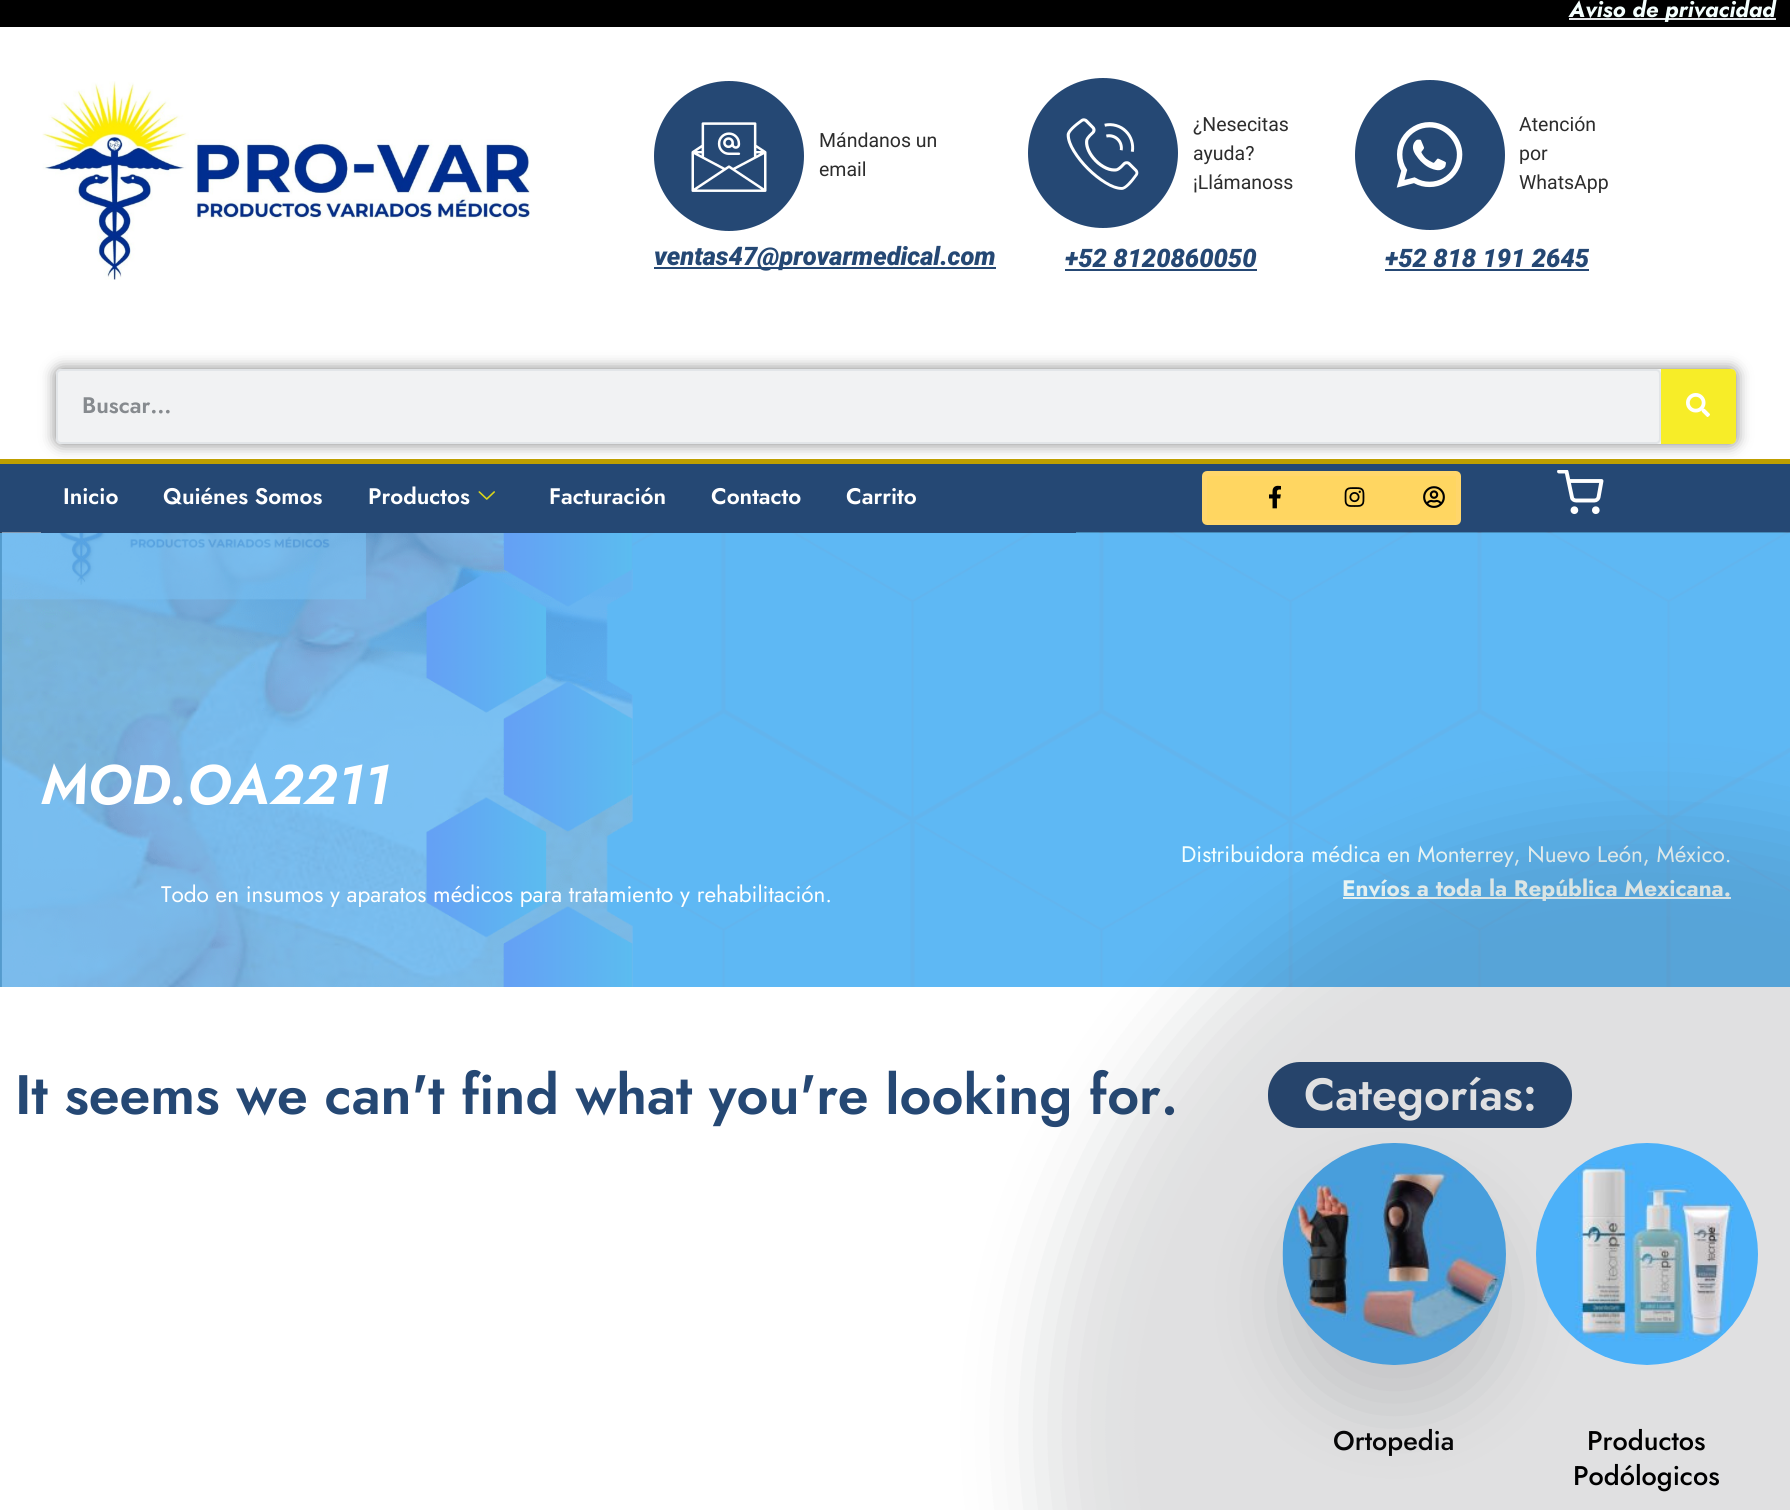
import math
import cairocffi as cairo

surface = cairo.ImageSurface(cairo.FORMAT_RGB24, 1790, 1510)
cr = cairo.Context(surface)
options = cairo.FontOptions()
options.set_hint_metrics(cairo.HINT_METRICS_OFF)
options.set_hint_style(cairo.HINT_STYLE_NONE)
cr.set_font_options(options)
cr.set_miter_limit(4)


def use_color(code):
    cr.set_source_rgb(*(v / 255 for v in bytes.fromhex(code[-6:])))


def round_rect(x, y, w, h, r):
    cr.new_sub_path()
    for i, (u, v) in enumerate([(x + w - r, y + h - r), (x + r, y + h - r), (x + r, y + r), (x + w - r, y + r)]):
        cr.arc(u, v, r, i * math.pi / 2, (i + 1) * math.pi / 2)
    cr.close_path()


def shadow(x, y, w, h, r, blur, alpha):
    cr.push_group_with_content(cairo.CONTENT_ALPHA)
    cr.set_operator(cairo.OPERATOR_SOURCE)
    for i in range(15, -16, -2):
        e = blur * i / 6
        if min(w, h) + 2 * e > 0:
            cr.set_source_rgba(0, 0, 0, alpha * math.erfc((i - 1) / 8.5) / 2)
            round_rect(x - e, y - e, w + 2 * e, h + 2 * e, max(0, min(r + e + blur * .6, min(w, h) / 2 + e)))
            cr.fill()
    cr.mask(cr.pop_group())


def picture(path, x, y, w, h):
    cr.save()
    cr.set_source_surface(cairo.ImageSurface.create_from_png(path), x, y)
    cr.rectangle(x, y, w, h)
    cr.fill()
    cr.restore()


use_color("#ffffff")
cr.paint()
use_color("#000000")
cr.rectangle(0, 0, 1790, 27)
cr.fill()
use_color("#e2e5e8")
cr.rectangle(1569, 18, 207, 2)
cr.fill()
cr.select_font_face("Jost", cairo.FONT_SLANT_ITALIC, cairo.FONT_WEIGHT_BOLD)
cr.set_font_size(22.5)
use_color("#f4fffe")
cr.move_to(1569, 17)
cr.show_text("Aviso de privacidad")
picture("img1.png", 42, 81, 488, 199)
use_color("#254874")
cr.arc(729, 156, 75, 0, 2 * math.pi)
cr.fill()
picture("img2.png", 691, 122, 76, 70)
cr.select_font_face("Roboto")
cr.set_font_size(19.5)
use_color("#2d2d2d")
cr.move_to(819, 147)
cr.show_text("Mándanos un")
cr.move_to(819, 176)
cr.show_text("email")
use_color("#254874")
cr.rectangle(654, 267, 342, 2)
cr.fill()
cr.select_font_face("Roboto Black", cairo.FONT_SLANT_ITALIC)
cr.set_font_size(25.5)
cr.move_to(654, 265)
cr.show_text("ventas47@provarmedical.com")
cr.new_path()
cr.arc(1103, 153, 75, 0, 2 * math.pi)
cr.fill()
picture("img3.png", 1066, 118, 73, 72)
cr.select_font_face("Roboto")
cr.set_font_size(19.5)
use_color("#2d2d2d")
cr.move_to(1193, 131)
cr.show_text("¿Nesecitas")
cr.move_to(1193, 160)
cr.show_text("ayuda?")
cr.move_to(1193, 189)
cr.show_text("¡Llámanoss")
cr.select_font_face("Roboto Black", cairo.FONT_SLANT_ITALIC)
cr.set_font_size(25.5)
use_color("#254874")
cr.move_to(1065, 267)
cr.show_text("+52 8120860050")
cr.rectangle(1065, 269, 192, 2)
cr.fill()
cr.arc(1430, 155, 75, 0, 2 * math.pi)
cr.fill()
picture("img4.png", 1396, 122, 67, 66)
cr.select_font_face("Roboto")
cr.set_font_size(19.5)
use_color("#2d2d2d")
cr.move_to(1519, 131)
cr.show_text("Atención")
cr.move_to(1519, 160)
cr.show_text("por")
cr.move_to(1519, 189)
cr.show_text("WhatsApp")
cr.select_font_face("Roboto Black", cairo.FONT_SLANT_ITALIC)
cr.set_font_size(25.5)
use_color("#254874")
cr.move_to(1385, 267)
cr.show_text("+52 818 191 2645")
cr.rectangle(1385, 269, 204, 2)
cr.fill()
use_color("#000000")
shadow(56, 369, 1680, 75, 5, 7.5, 0.5)
use_color("#f1f2f3")
round_rect(56, 369, 1680, 75, 5)
cr.fill()
round_rect(57, 370, 1603, 73, 4)
use_color("#e2e5e8")
cr.stroke()
cr.select_font_face("Jost SemiBold")
cr.set_font_size(22.5)
use_color("#868a8e")
cr.move_to(82, 413)
cr.show_text("Buscar...")
cr.set_source_rgba(0.973, 0.925, 0.043, 0.87)
cr.new_path()
cr.move_to(1661, 369)
cr.line_to(1731, 369)
cr.curve_to(1734, 369, 1736, 371, 1736, 374)
cr.line_to(1736, 439)
cr.curve_to(1736, 442, 1734, 444, 1731, 444)
cr.line_to(1661, 444)
cr.close_path()
cr.fill()
picture("img5.png", 1686, 393, 24, 24)
use_color("#254874")
cr.rectangle(0, 464, 1790, 69)
cr.fill()
use_color("#bf9f00")
cr.rectangle(0, 459, 1790, 5)
cr.fill()
picture("img10.png", 0, 532, 1790, 455)
use_color("#254874")
cr.rectangle(41, 532, 1035, 1)
cr.fill()
use_color("#ffffff")
cr.move_to(63, 504)
cr.show_text("Inicio")
cr.move_to(163, 504)
cr.show_text("Quiénes Somos")
cr.move_to(368, 504)
cr.show_text("Productos")
picture("img6.png", 478, 491, 17, 9)
cr.move_to(549, 504)
cr.show_text("Facturación")
cr.move_to(711, 504)
cr.show_text("Contacto")
cr.move_to(846, 504)
cr.show_text("Carrito")
use_color("#ffd661")
round_rect(1204.5, 473.5, 254, 49, 2.5)
cr.fill_preserve()
use_color("#ffd66b")
cr.set_line_width(5)
cr.stroke()
picture("img7.png", 1269, 485, 12, 24)
picture("img8.png", 1344, 487, 21, 20)
picture("img9.png", 1423, 486, 22, 22)
cr.save()
cr.rectangle(1557, 470, 47, 46)
cr.clip()
cr.new_path()
cr.move_to(1559, 471.5)
cr.line_to(1566.5, 471.5)
cr.line_to(1572, 497.5)
cr.curve_to(1572, 499, 1574, 500.5, 1576, 500.5)
cr.line_to(1594.5, 500.5)
cr.curve_to(1596.5, 500.5, 1598, 499, 1598.5, 497.5)
cr.line_to(1601.5, 481)
cr.line_to(1568.5, 481)
use_color("#ffffff")
cr.set_line_width(3.9)
cr.set_line_cap(cairo.LINE_CAP_ROUND)
cr.set_line_join(cairo.LINE_JOIN_ROUND)
cr.stroke()
cr.restore()
cr.arc(1574.4, 510.2, 1.9, 0, 2 * math.pi)
use_color("#ffffff")
cr.set_line_width(3.9)
cr.stroke()
cr.arc(1595.8, 510.2, 1.9, 0, 2 * math.pi)
cr.stroke()
cr.select_font_face("Jost SemiBold", cairo.FONT_SLANT_ITALIC)
cr.set_font_size(55.5)
cr.move_to(41, 804)
cr.show_text("MOD.OA2211")
cr.select_font_face("Jost")
cr.set_font_size(22.5)
cr.move_to(161, 902)
cr.show_text("Todo en insumos y aparatos médicos para tratamiento y rehabilitación.")
use_color("#f4fffe")
cr.move_to(1181, 862)
cr.show_text("Distribuidora médica en Monterrey, Nuevo León, México.")
cr.rectangle(1343, 897, 388, 2)
cr.fill()
cr.select_font_face("Jost", cairo.FONT_SLANT_NORMAL, cairo.FONT_WEIGHT_BOLD)
cr.move_to(1342, 896)
cr.show_text("Envíos a toda la República Mexicana.")
cr.select_font_face("Jost SemiBold")
cr.set_font_size(55.5)
use_color("#254874")
cr.move_to(15, 1114)
cr.show_text("It seems we can't find what you're looking for.")
round_rect(1268, 1062, 304, 66, 32)
cr.fill()
cr.set_font_size(45)
use_color("#ffffff")
cr.move_to(1304, 1110)
cr.show_text("Categorías:")
use_color("#2d3237")
shadow(1283, 1188, 223, 222, 111, 37.5, 0.15)
picture("img11.png", 1282, 1143, 224, 222)
cr.select_font_face("Jost Medium")
cr.set_font_size(27)
use_color("#000000")
cr.move_to(1333, 1450)
cr.show_text("Ortopedia")
use_color("#2d3237")
shadow(1040, 822, 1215, 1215, 607.5, 43.5, 0.15)
picture("img12.png", 1536, 1143, 222, 222)
use_color("#000000")
cr.move_to(1587, 1450)
cr.show_text("Productos")
cr.move_to(1573, 1485)
cr.show_text("Podólogicos")
surface.write_to_png("result.png")
